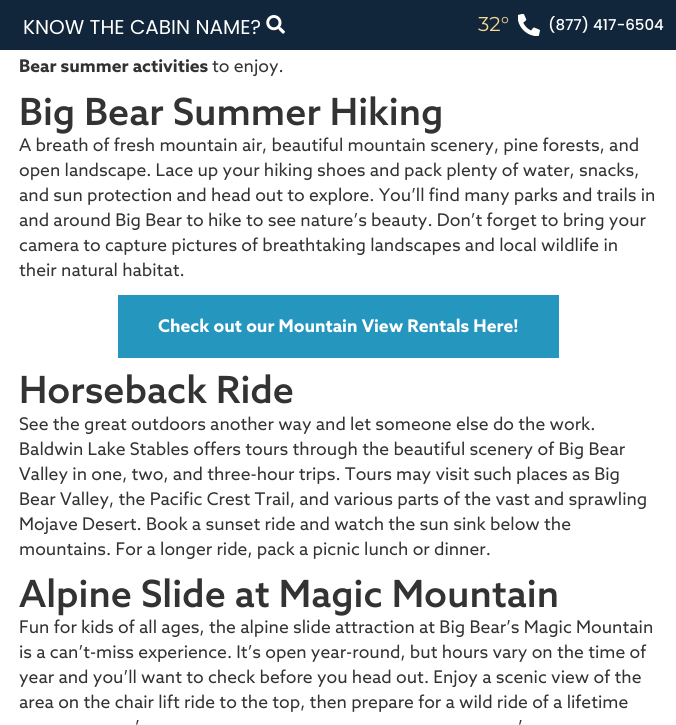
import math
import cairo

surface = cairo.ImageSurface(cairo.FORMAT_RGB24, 676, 725)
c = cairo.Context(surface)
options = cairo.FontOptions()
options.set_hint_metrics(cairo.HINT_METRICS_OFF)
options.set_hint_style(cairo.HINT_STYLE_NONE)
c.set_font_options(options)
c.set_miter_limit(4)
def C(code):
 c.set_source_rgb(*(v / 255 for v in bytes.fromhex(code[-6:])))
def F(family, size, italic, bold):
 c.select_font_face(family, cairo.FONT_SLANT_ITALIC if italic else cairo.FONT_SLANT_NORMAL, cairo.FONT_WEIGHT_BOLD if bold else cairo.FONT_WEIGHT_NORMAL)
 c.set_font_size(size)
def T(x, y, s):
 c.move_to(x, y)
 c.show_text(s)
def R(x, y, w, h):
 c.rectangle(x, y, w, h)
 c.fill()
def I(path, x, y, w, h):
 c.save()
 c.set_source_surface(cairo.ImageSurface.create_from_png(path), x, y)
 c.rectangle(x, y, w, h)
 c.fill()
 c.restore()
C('ffffff')
c.paint()
C('11263a')
R(0,0,676,50)
F('Poppins',20,0,0)
C('ffffff')
T(23,34,'KNOW THE CABIN NAME?')
I('1.png',266,15,19,19)
F('Montserrat',20,0,0)
C('f9d791')
T(478,31,'32°')
I('2.png',518,14,22,22)
F('Poppins Medium',15,0,0)
C('ffffff')
T(548,30,'(877) 417-6504')
F('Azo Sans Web',17.5,0,1)
C('333333')
T(19,72,'Bear summer activities')
F('Azo Sans Web',17.5,0,0)
T(212,72,'to enjoy.')
F('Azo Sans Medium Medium',37.5,0,0)
T(19,125,'Big Bear Summer Hiking')
F('Azo Sans Web',17.5,0,0)
T(19,151,'A breath of fresh mountain air, beautiful mountain scenery, pine forests, and')
T(19,176,'open landscape. Lace up your hiking shoes and pack plenty of water, snacks,')
T(19,201,'and sun protection and head out to explore. You’ll find many parks and trails in')
T(19,226,'and around Big Bear to hike to see nature’s beauty. Don’t forget to bring your')
T(19,251,'camera to capture pictures of breathtaking landscapes and local wildlife in')
T(19,276,'their natural habitat.')
C('2596be')
R(118,295,441,63)
F('Azo Sans Web',17.5,0,1)
C('ffffff')
T(158,332,'Check out our Mountain View Rentals Here!')
F('Azo Sans Medium Medium',37.5,0,0)
C('333333')
T(19,403,'Horseback Ride')
F('Azo Sans Web',17.5,0,0)
T(19,430,'See the great outdoors another way and let someone else do the work.')
T(19,455,'Baldwin Lake Stables offers tours through the beautiful scenery of Big Bear')
T(19,480,'Valley in one, two, and three-hour trips. Tours may visit such places as Big')
T(19,505,'Bear Valley, the Pacific Crest Trail, and various parts of the vast and sprawling')
T(19,530,'Mojave Desert. Book a sunset ride and watch the sun sink below the')
T(19,555,'mountains. For a longer ride, pack a picnic lunch or dinner.')
F('Azo Sans Medium Medium',37.5,0,0)
T(19,607,'Alpine Slide at Magic Mountain')
F('Azo Sans Web',17.5,0,0)
T(19,633,'Fun for kids of all ages, the alpine slide attraction at Big Bear’s Magic Mountain')
T(19,658,'is a can’t-miss experience. It’s open year-round, but hours vary on the time of')
T(19,683,'year and you’ll want to check before you head out. Enjoy a scenic view of the')
T(19,708,'area on the chair lift ride to the top, then prepare for a wild ride of a lifetime')
T(135,733,'’')
T(518,733,'’')
surface.write_to_png('o.png')
